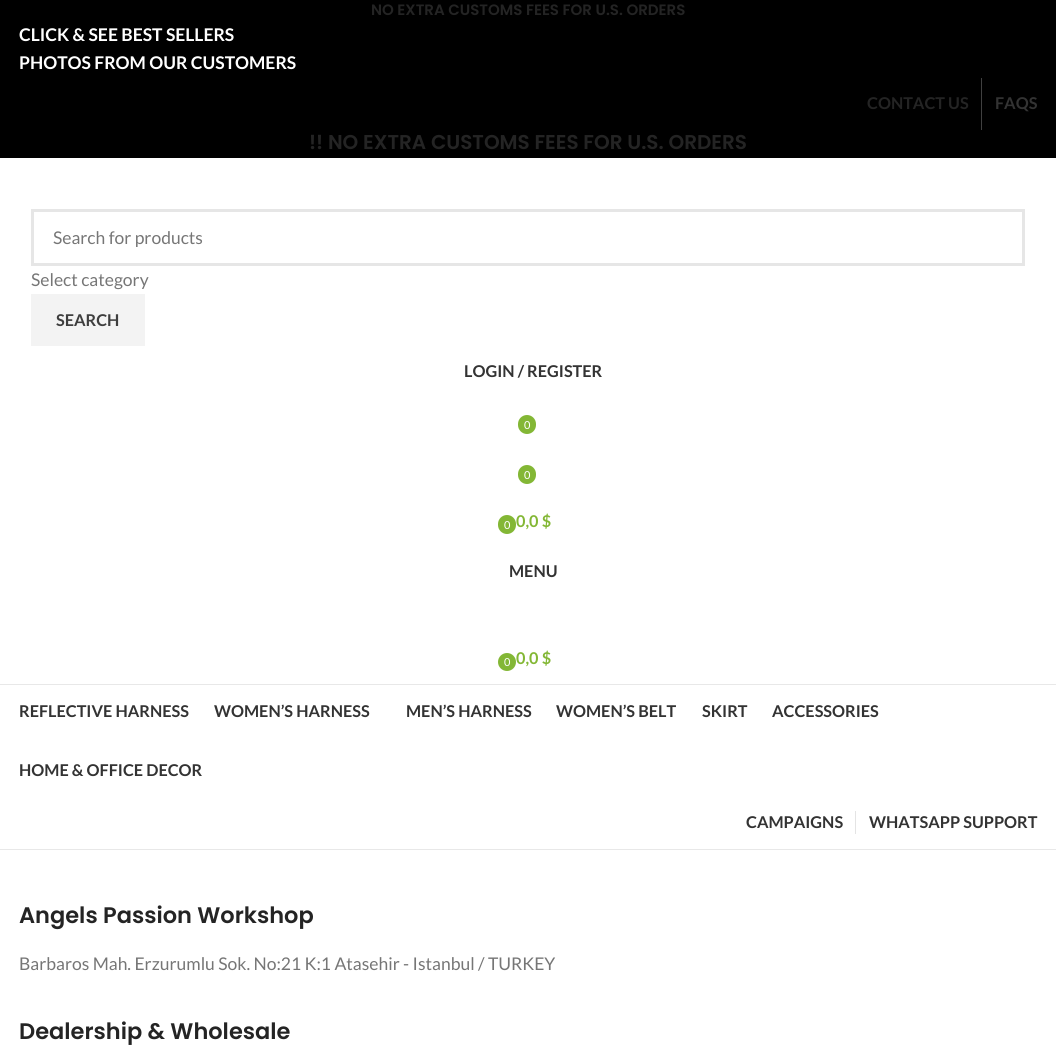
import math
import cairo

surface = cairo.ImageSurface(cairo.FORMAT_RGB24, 1056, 1060)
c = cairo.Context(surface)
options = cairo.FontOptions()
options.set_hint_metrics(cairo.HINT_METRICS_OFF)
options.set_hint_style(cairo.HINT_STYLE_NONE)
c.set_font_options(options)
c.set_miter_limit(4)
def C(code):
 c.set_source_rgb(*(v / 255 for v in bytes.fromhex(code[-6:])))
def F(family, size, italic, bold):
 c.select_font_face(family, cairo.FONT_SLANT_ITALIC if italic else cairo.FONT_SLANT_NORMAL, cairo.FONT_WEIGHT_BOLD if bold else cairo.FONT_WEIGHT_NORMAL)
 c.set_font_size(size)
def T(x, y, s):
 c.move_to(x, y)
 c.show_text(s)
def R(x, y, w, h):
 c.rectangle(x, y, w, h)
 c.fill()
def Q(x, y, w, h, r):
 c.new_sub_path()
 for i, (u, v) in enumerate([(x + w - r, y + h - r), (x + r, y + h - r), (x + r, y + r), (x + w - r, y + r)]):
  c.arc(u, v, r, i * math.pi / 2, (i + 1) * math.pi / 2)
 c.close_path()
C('ffffff')
c.paint()
C('000000')
R(0,0,1056,158)
F('Poppins SemiBold',15,0,0)
C('242424')
T(371,15,'NO EXTRA CUSTOMS FEES FOR U.S. ORDERS')
F('Lato',17.5,0,1)
C('ffffff')
T(19,41,'CLICK & SEE BEST SELLERS')
T(19,69,'PHOTOS FROM OUR CUSTOMERS')
F('Lato',16.25,0,1)
C('242424')
T(867,109,'CONTACT US')
C('404040')
R(981,78,1,52)
C('333333')
T(995,109,'FAQS')
F('Poppins SemiBold',20,0,0)
C('242424')
T(309,149,'!! NO EXTRA CUSTOMS FEES FOR U.S. ORDERS')
C('e8e8e8')
R(0,684,1056,1)
c.rectangle(32.5,210.5,991,54)
C('e6e6e6')
c.set_line_width(3)
c.stroke()
F('Lato',17.5,0,0)
C('767676')
T(53,244,'Search for products')
T(31,286,'Select category')
C('f3f3f3')
R(31,294,114,52)
F('Lato',16.25,0,1)
C('3e3e3e')
T(56,326,'SEARCH')
C('333333')
T(464,377,'LOGIN / REGISTER')
C('83b735')
Q(518,415,18,19,9)
c.fill()
F('Lato',11,0,0)
C('ffffff')
T(524,429,'0')
C('83b735')
Q(518,465,18,19,9)
c.fill()
C('ffffff')
T(524,479,'0')
C('83b735')
Q(498,515,18,19,9)
c.fill()
C('ffffff')
T(504,529,'0')
F('Lato',16.25,0,1)
C('83b735')
T(516,527,'0,0 $')
C('333333')
T(509,577,'MENU')
C('83b735')
c.new_path()
c.arc(507,662,9,0,2 * math.pi)
c.fill()
F('Lato',11,0,0)
C('ffffff')
T(504,666,'0')
F('Lato',16.25,0,1)
C('83b735')
T(516,664,'0,0 $')
C('e8e8e8')
R(0,849,1056,1)
C('333333')
T(19,717,'REFLECTIVE HARNESS')
T(214,717,'WOMEN’S HARNESS')
T(406,717,'MEN’S HARNESS')
T(556,717,'WOMEN’S BELT')
T(702,717,'SKIRT')
T(772,717,'ACCESSORIES')
T(19,776,'HOME & OFFICE DECOR')
T(746,828,'CAMPAIGNS')
C('e4e4e4')
R(855,811,1,23)
C('333333')
T(869,828,'WHATSAPP SUPPORT')
F('Poppins SemiBold',22.5,0,0)
C('242424')
T(19,923,'Angels Passion Workshop')
F('Lato',17.5,0,0)
C('767676')
T(19,970,'Barbaros Mah. Erzurumlu Sok. No:21 K:1 Atasehir - Istanbul / TURKEY')
F('Poppins SemiBold',22.5,0,0)
C('242424')
T(19,1039,'Dealership & Wholesale')
surface.write_to_png('o.png')
